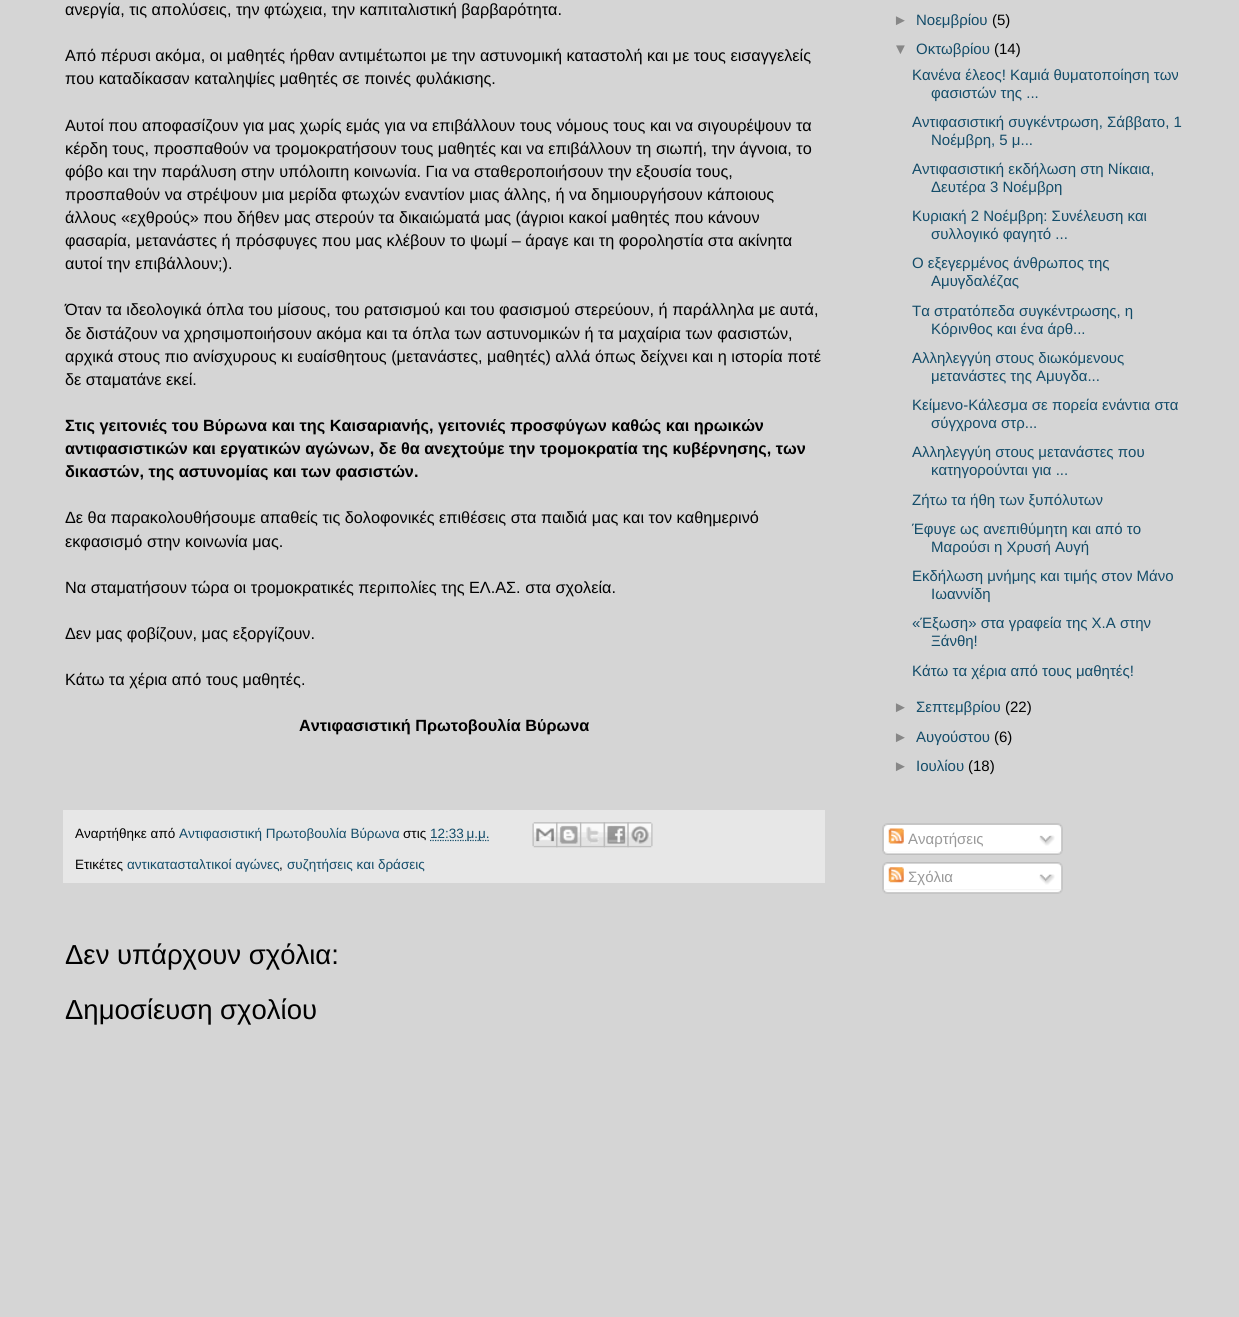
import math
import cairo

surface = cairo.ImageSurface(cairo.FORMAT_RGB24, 1239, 1317)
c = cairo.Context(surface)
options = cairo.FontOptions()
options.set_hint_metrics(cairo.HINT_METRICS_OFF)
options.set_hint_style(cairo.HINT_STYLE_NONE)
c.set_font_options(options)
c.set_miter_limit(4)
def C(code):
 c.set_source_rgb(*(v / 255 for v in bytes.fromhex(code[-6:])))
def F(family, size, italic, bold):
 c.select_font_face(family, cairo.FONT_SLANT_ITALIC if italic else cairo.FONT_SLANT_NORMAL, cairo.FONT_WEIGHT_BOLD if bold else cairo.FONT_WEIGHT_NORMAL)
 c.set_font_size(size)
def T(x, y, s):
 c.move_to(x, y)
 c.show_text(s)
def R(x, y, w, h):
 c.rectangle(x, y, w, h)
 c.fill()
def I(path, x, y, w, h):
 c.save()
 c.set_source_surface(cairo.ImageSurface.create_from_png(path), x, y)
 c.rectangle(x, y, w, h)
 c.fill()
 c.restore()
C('d5d5d5')
c.paint()
F('Liberation Sans',16.25,0,0)
C('000000')
T(65,15,'ανεργία, τις απολύσεις, την φτώχεια, την καπιταλιστική βαρβαρότητα.')
T(65,61,'Από πέρυσι ακόμα, οι μαθητές ήρθαν αντιμέτωποι με την αστυνομική καταστολή και με τους εισαγγελείς')
T(65,84,'που καταδίκασαν καταληψίες μαθητές σε ποινές φυλάκισης.')
T(65,131,'Αυτοί που αποφασίζουν για μας χωρίς εμάς για να επιβάλλουν τους νόμους τους και να σιγουρέψουν τα')
T(65,154,'κέρδη τους, προσπαθούν να τρομοκρατήσουν τους μαθητές και να επιβάλλουν τη σιωπή, την άγνοια, το')
T(65,177,'φόβο και την παράλυση στην υπόλοιπη κοινωνία. Για να σταθεροποιήσουν την εξουσία τους,')
T(65,200,'προσπαθούν να στρέψουν μια μερίδα φτωχών εναντίον μιας άλλης, ή να δημιουργήσουν κάποιους')
T(65,223,'άλλους «εχθρούς» που δήθεν μας στερούν τα δικαιώματά μας (άγριοι κακοί μαθητές που κάνουν')
T(65,246,'φασαρία, μετανάστες ή πρόσφυγες που μας κλέβουν το ψωμί – άραγε και τη φοροληστία στα ακίνητα')
T(65,269,'αυτοί την επιβάλλουν;).')
T(65,315,'Όταν τα ιδεολογικά όπλα του μίσους, του ρατσισμού και του φασισμού στερεύουν, ή παράλληλα με αυτά,')
T(65,339,'δε διστάζουν να χρησιμοποιήσουν ακόμα και τα όπλα των αστυνομικών ή τα μαχαίρια των φασιστών,')
T(65,362,'αρχικά στους πιο ανίσχυρους κι ευαίσθητους (μετανάστες, μαθητές) αλλά όπως δείχνει και η ιστορία ποτέ')
T(65,385,'δε σταματάνε εκεί.')
F('Liberation Sans',16.25,0,1)
T(65,431,'Στις γειτονιές του Βύρωνα και της Καισαριανής, γειτονιές προσφύγων καθώς και ηρωικών')
T(65,454,'αντιφασιστικών και εργατικών αγώνων, δε θα ανεχτούμε την τρομοκρατία της κυβέρνησης, των')
T(65,477,'δικαστών, της αστυνομίας και των φασιστών.')
F('Liberation Sans',16.25,0,0)
T(65,523,'Δε θα παρακολουθήσουμε απαθείς τις δολοφονικές επιθέσεις στα παιδιά μας και τον καθημερινό')
T(65,547,'εκφασισμό στην κοινωνία μας.')
T(65,593,'Να σταματήσουν τώρα οι τρομοκρατικές περιπολίες της ΕΛ.ΑΣ. στα σχολεία.')
T(65,639,'Δεν μας φοβίζουν, μας εξοργίζουν.')
T(65,685,'Κάτω τα χέρια από τους μαθητές.')
F('Liberation Sans',16.25,0,1)
T(299,731,'Αντιφασιστική Πρωτοβουλία Βύρωνα')
C('e7e7e7')
R(63,810,762,73)
F('Liberation Sans',13.5,0,0)
C('000000')
T(75,838,'Αναρτήθηκε από')
C('134c69')
T(179,838,'Αντιφασιστική Πρωτοβουλία Βύρωνα')
C('000000')
T(403,838,'στις')
c.new_path()
c.move_to(430,840.5)
c.line_to(489.5,840.5)
C('134c69')
c.set_line_width(1.2)
c.set_dash([1.25,1.25])
c.stroke()
T(430,838,'12:33 μ.μ.')
I('1.png',532,822,26,26)
I('2.png',556,822,26,26)
I('3.png',580,822,25,26)
I('4.png',603,822,26,26)
I('5.png',627,822,26,26)
C('000000')
T(75,869,'Ετικέτες')
C('134c69')
T(127,869,'αντικατασταλτικοί αγώνες')
C('000000')
T(279,869,',')
C('134c69')
T(287,869,'συζητήσεις και δράσεις')
F('Liberation Sans',27.5,0,0)
C('000000')
T(65,964,'Δεν υπάρχουν σχόλια:')
T(65,1019,'Δημοσίευση σχολίου')
F('Liberation Sans',15,0,0)
C('878787')
T(893,25,'►')
C('134c69')
T(916,25,'Νοεμβρίου')
C('000000')
T(992,25,'(5)')
C('878787')
T(893,54,'▼')
C('134c69')
T(916,54,'Οκτωβρίου')
C('000000')
T(994,54,'(14)')
C('134c69')
T(912,80,'Κανένα έλεος! Καμιά θυματοποίηση των')
T(931,98,'φασιστών της ...')
T(912,127,'Aντιφασιστική συγκέντρωση, Σάββατο, 1')
T(931,145,'Νοέμβρη, 5 μ...')
T(912,174,'Αντιφασιστική εκδήλωση στη Νίκαια,')
T(931,192,'Δευτέρα 3 Νοέμβρη')
T(912,221,'Κυριακή 2 Νοέμβρη: Συνέλευση και')
T(931,239,'συλλογικό φαγητό ...')
T(912,268,'Ο εξεγερμένος άνθρωπος της')
T(931,286,'Αμυγδαλέζας')
T(912,316,'Τα στρατόπεδα συγκέντρωσης, η')
T(931,334,'Κόρινθος και ένα άρθ...')
T(912,363,'Aλληλεγγύη στους διωκόμενους')
T(931,381,'μετανάστες της Αμυγδα...')
T(912,410,'Κείμενο-Κάλεσμα σε πορεία ενάντια στα')
T(931,428,'σύγχρονα στρ...')
T(912,457,'Αλληλεγγύη στους μετανάστες που')
T(931,475,'κατηγορούνται για ...')
T(912,505,'Ζήτω τα ήθη των ξυπόλυτων')
T(912,534,'Έφυγε ως ανεπιθύμητη και από το')
T(931,552,'Μαρούσι η Χρυσή Αυγή')
T(912,581,'Εκδήλωση μνήμης και τιμής στον Μάνο')
T(931,599,'Ιωαννίδη')
T(912,628,'«Έξωση» στα γραφεία της Χ.Α στην')
T(931,646,'Ξάνθη!')
T(912,676,'Κάτω τα χέρια από τους μαθητές!')
C('878787')
T(893,712,'►')
C('134c69')
T(916,712,'Σεπτεμβρίου')
C('000000')
T(1005,712,'(22)')
C('878787')
T(893,742,'►')
C('134c69')
T(916,742,'Αυγούστου')
C('000000')
T(994,742,'(6)')
C('878787')
T(893,771,'►')
C('134c69')
T(916,771,'Ιουλίου')
C('000000')
T(968,771,'(18)')
I('6.png',882,823,181,28)
I('7.png',888,828,16,16)
C('999999')
T(908,844,'Αναρτήσεις')
I('8.png',1039,835,16,11)
I('9.png',882,851,181,4)
I('10.png',882,862,181,28)
I('11.png',888,867,16,16)
T(908,882,'Σχόλια')
I('12.png',1039,874,16,11)
I('13.png',882,890,181,4)
surface.write_to_png('o.png')
